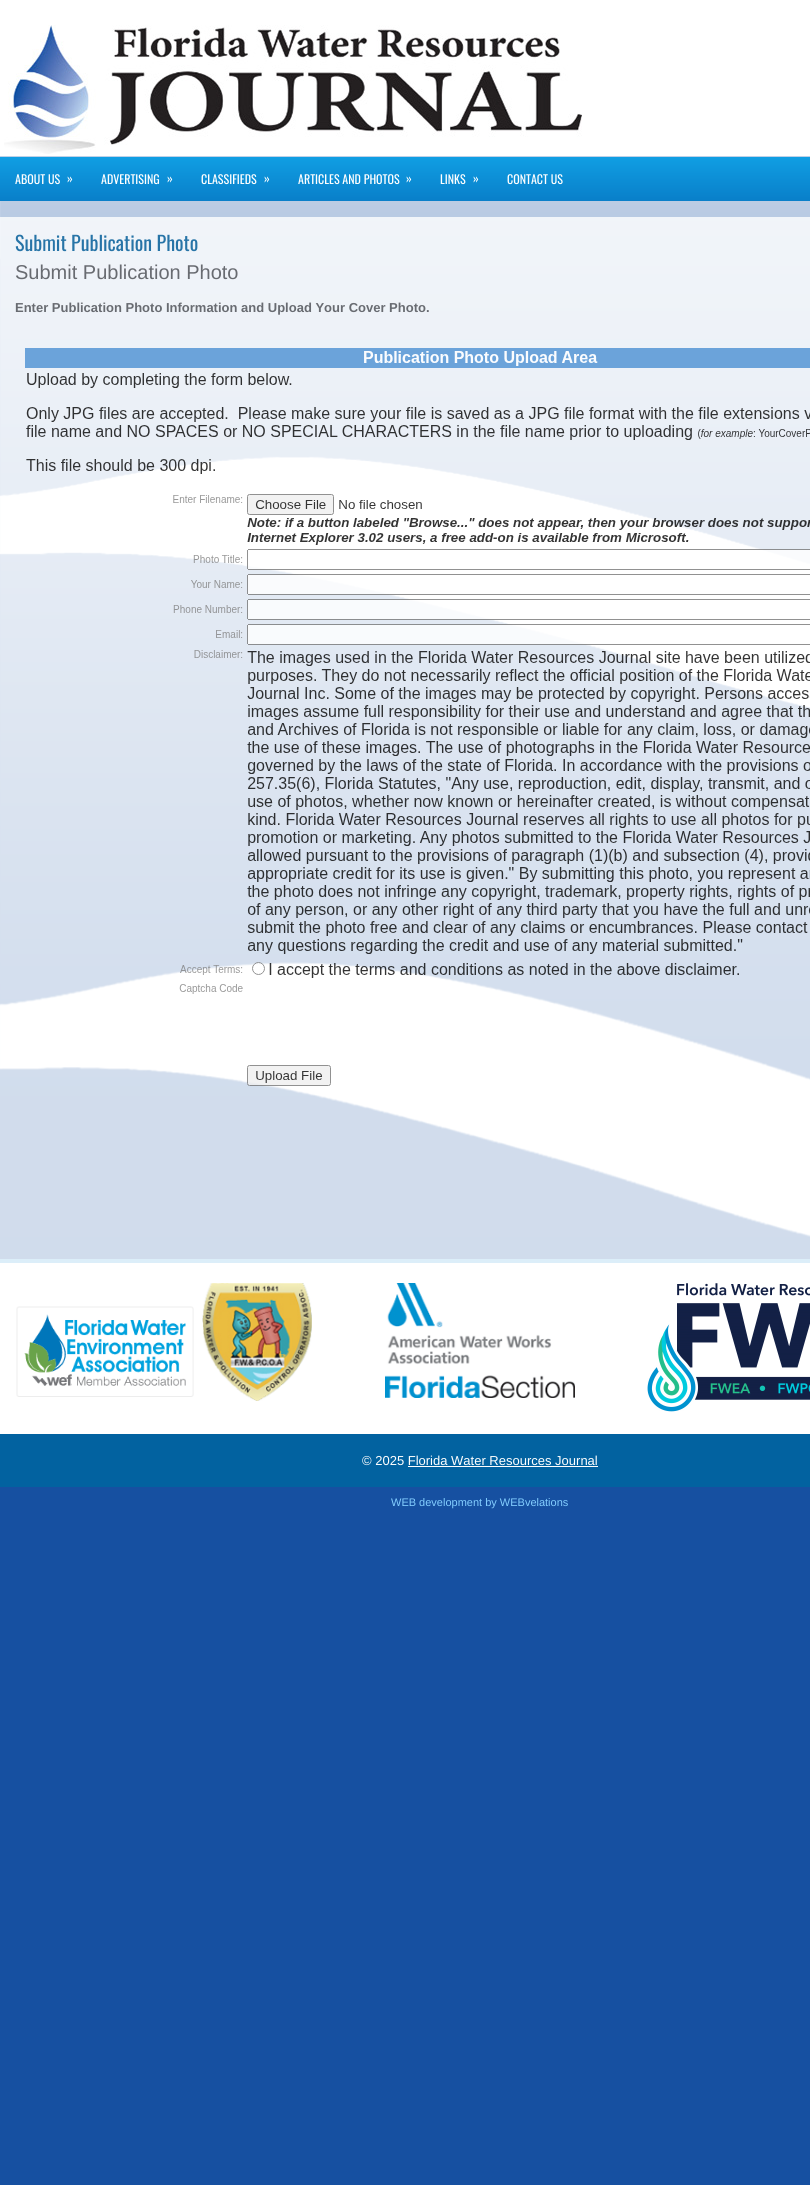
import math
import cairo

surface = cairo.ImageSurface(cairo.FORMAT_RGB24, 810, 2185)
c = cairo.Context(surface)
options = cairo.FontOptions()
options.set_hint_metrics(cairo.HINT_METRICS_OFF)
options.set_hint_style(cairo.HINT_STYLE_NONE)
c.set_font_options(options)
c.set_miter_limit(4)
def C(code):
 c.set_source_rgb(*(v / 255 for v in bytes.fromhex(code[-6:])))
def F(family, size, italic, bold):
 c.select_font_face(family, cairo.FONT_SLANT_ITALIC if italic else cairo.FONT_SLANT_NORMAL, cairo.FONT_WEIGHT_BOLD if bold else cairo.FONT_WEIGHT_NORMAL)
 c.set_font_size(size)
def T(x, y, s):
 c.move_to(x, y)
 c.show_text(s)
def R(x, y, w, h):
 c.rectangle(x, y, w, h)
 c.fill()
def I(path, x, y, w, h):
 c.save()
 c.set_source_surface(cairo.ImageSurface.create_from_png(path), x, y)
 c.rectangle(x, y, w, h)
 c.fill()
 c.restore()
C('1650a1')
c.paint()
I('1.png',0,0,810,1237)
I('2.png',4,25,578,129)
gradient = cairo.LinearGradient(480,157,480,201)
gradient.add_color_stop_rgba(0,0.063,0.62,0.89,1)
gradient.add_color_stop_rgba(1,0.035,0.498,0.788,1)
c.set_source(gradient)
R(0,157,810,44)
F('Oswald',12,0,0)
C('ffffff')
T(15,184,'ABOUT US')
T(67,183,'»')
T(101,184,'ADVERTISING')
T(167,183,'»')
T(201,184,'CLASSIFIEDS')
T(264,183,'»')
T(298,184,'ARTICLES AND PHOTOS')
T(406,183,'»')
T(440,184,'LINKS')
T(473,183,'»')
T(507,184,'CONTACT US')
c.set_source_rgba(1,1,1,0.8)
R(0,217,810,1042)
F('Oswald',20,0,0)
C('2774a7')
T(15,251,'Submit Publication Photo')
F('Liberation Sans',20,0,0)
C('686b71')
T(15,279,'Submit Publication Photo')
F('Liberation Sans',13,0,1)
T(15,312,'Enter Publication Photo Information and Upload Your Cover Photo.')
I('3.png',25,348,785,738)
C('ffffff')
R(0,1263,810,171)
C('dceef9')
R(0,1259,810,4)
I('4.png',16,1306,178,91)
I('5.png',202,1283,110,118)
I('6.png',385,1283,190,115)
I('7.png',647,1283,163,129)
C('0262a0')
R(0,1434,810,53)
F('Liberation Sans',13,0,0)
C('ffffff')
T(362,1465,'© 2025 Florida Water Resources Journal')
R(408,1466,190,1)
F('Liberation Sans',11,0,0)
C('83ceff')
T(391,1506,'WEB development by WEBvelations')
surface.write_to_png('o.png')
